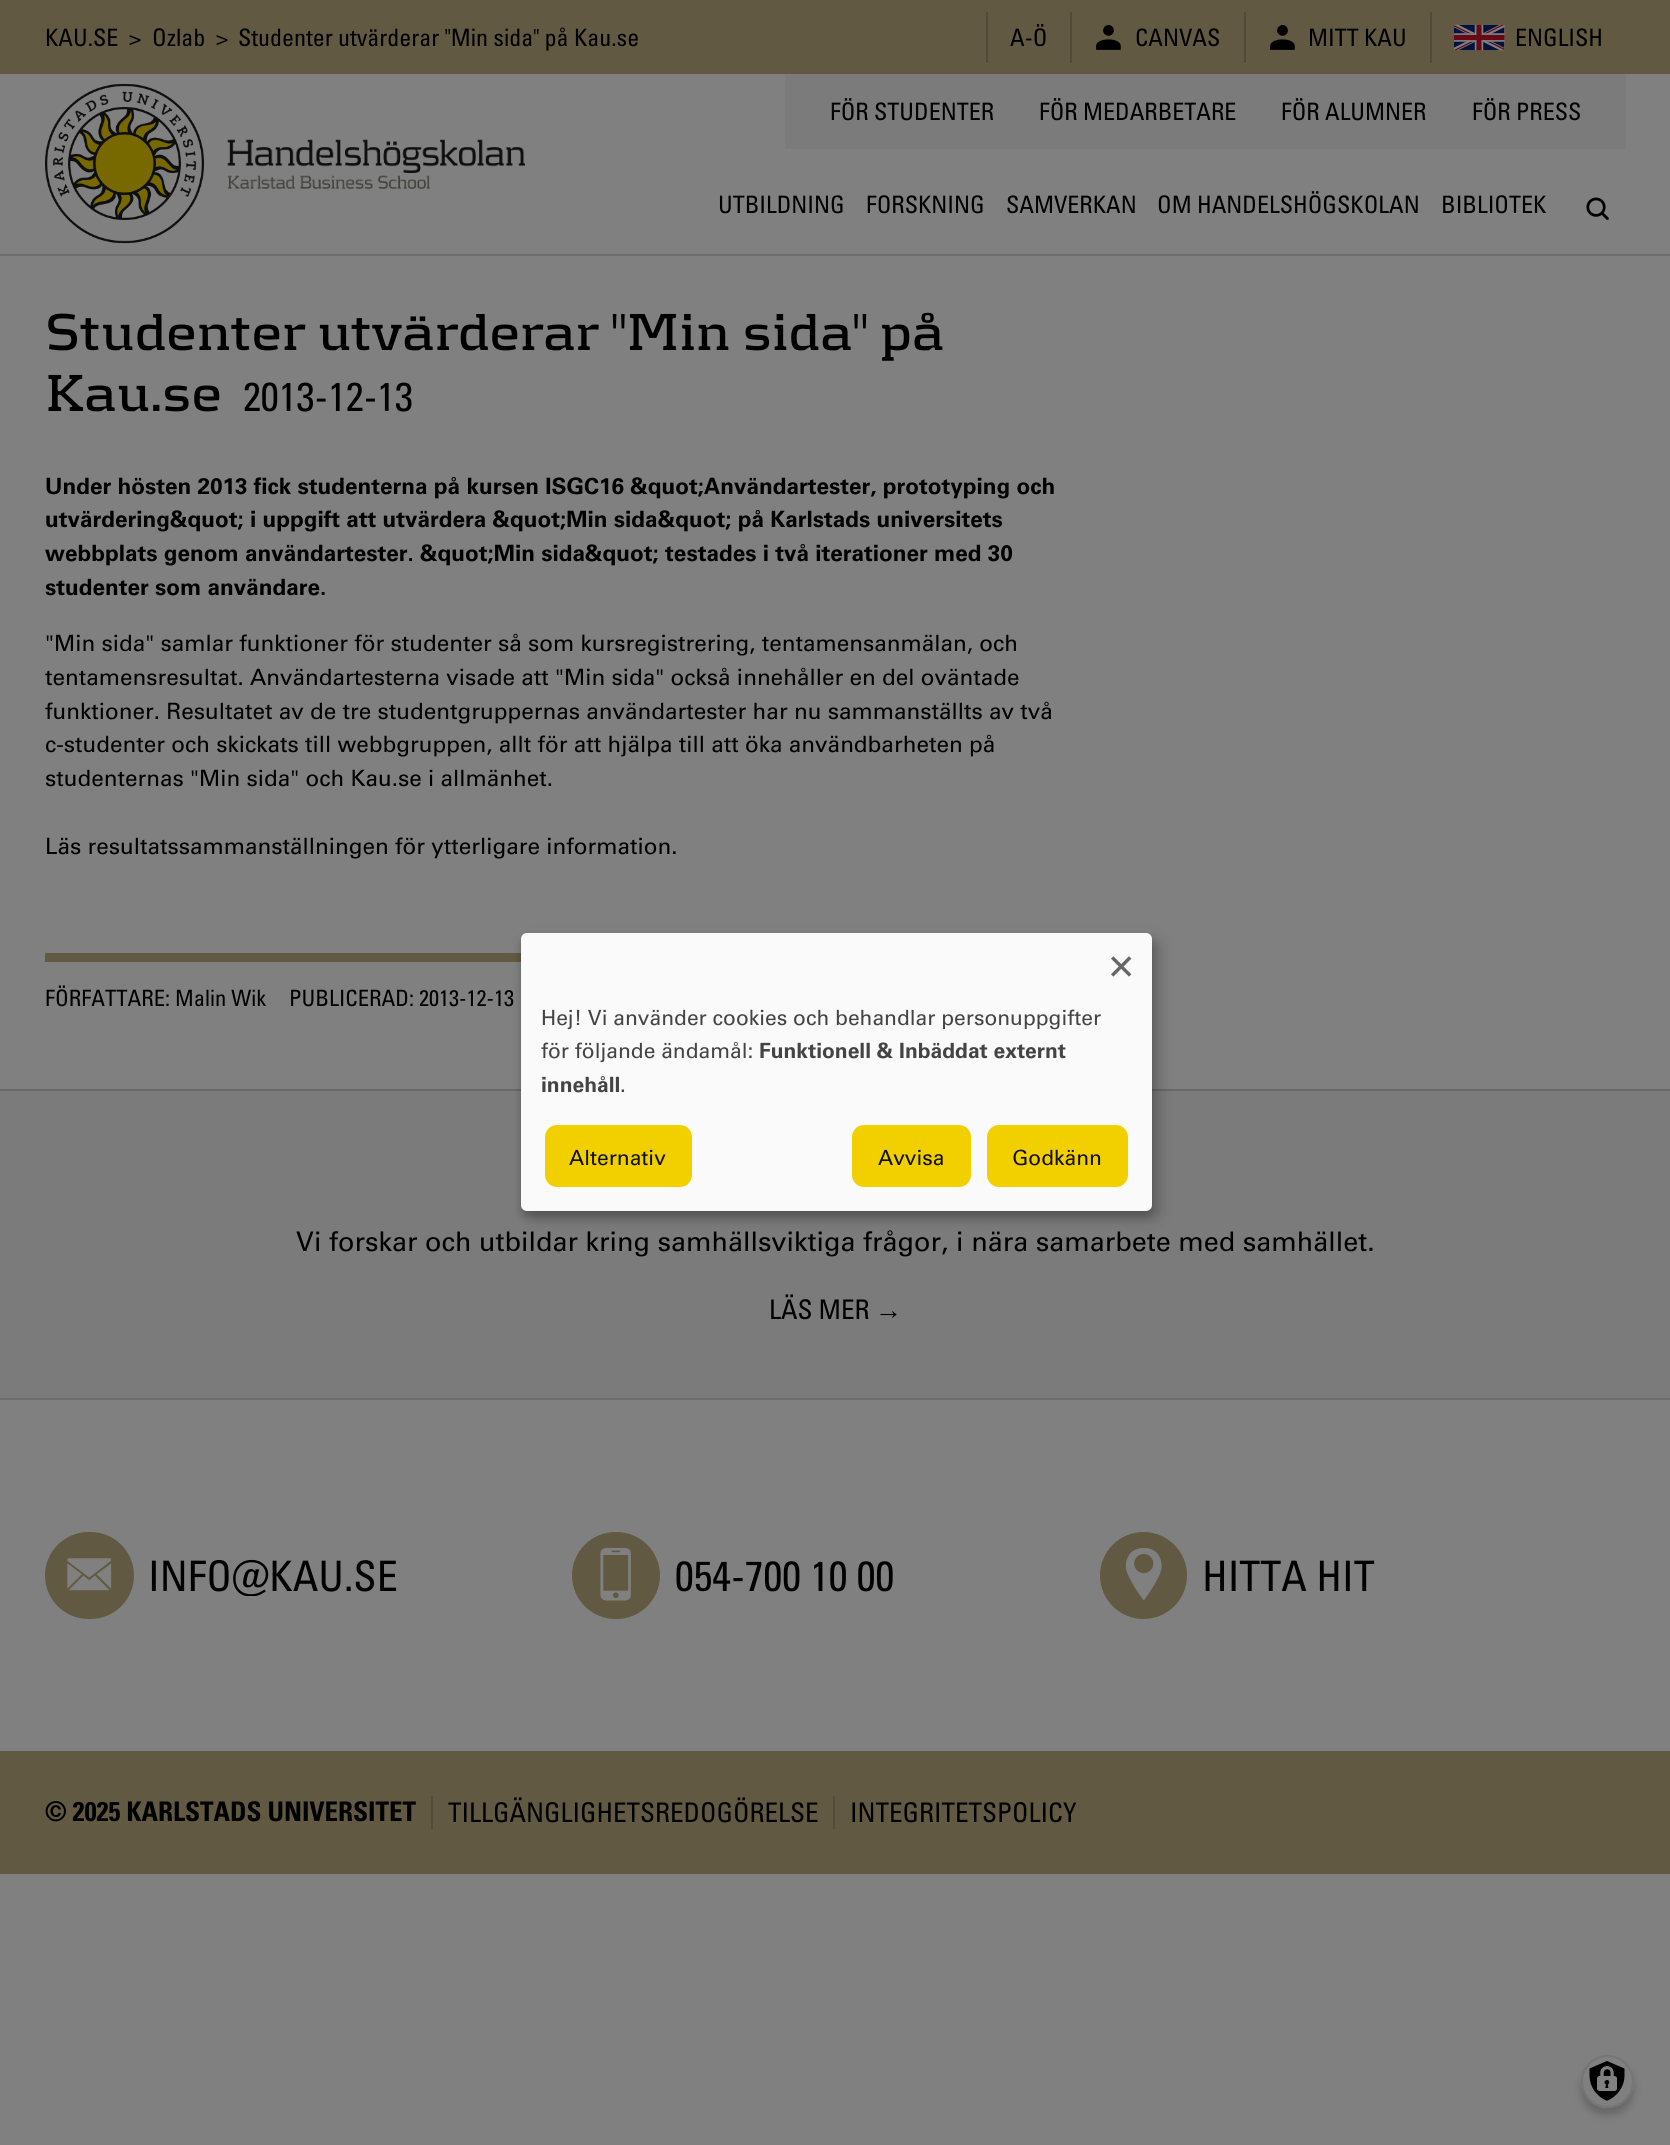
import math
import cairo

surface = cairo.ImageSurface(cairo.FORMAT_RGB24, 1670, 2145)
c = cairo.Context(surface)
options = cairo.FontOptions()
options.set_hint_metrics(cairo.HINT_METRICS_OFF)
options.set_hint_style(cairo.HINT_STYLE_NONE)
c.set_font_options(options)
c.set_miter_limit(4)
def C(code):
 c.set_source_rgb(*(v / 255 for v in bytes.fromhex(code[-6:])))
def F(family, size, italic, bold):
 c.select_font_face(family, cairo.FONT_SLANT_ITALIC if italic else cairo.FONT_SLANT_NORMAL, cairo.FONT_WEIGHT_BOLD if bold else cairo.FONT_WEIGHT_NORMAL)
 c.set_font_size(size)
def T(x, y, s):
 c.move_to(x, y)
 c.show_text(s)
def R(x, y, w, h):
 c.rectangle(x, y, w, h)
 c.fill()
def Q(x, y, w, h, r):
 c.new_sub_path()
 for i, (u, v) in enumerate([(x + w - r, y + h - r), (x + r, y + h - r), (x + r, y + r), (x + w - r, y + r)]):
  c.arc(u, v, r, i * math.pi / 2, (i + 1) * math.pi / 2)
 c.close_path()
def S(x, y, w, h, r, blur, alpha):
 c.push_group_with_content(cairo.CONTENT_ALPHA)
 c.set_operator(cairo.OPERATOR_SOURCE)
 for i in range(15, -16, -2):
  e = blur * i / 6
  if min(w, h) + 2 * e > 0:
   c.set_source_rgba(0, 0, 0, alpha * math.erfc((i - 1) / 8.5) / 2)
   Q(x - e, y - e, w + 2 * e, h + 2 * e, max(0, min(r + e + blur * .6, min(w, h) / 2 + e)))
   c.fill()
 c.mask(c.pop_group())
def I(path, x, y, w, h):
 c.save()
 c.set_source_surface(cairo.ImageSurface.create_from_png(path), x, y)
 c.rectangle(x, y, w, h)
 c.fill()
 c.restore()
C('808080')
c.paint()
C('615941')
R(0,0,1670,74)
F('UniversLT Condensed',24,0,0)
C('000000')
T(45,46,'KAU.SE')
T(129,46,'>')
T(152,46,'Ozlab')
T(216,46,'>')
T(238,46,'Studenter utvärderar "Min sida" på Kau.se')
C('524b37')
R(986,12,2,51)
C('000000')
T(1010,46,'A-Ö')
C('524b37')
R(1070,12,2,51)
I('1.png',1096,25,25,25)
C('000000')
T(1135,46,'CANVAS')
C('524b37')
R(1244,12,2,51)
I('1.png',1270,25,25,25)
C('000000')
T(1308,46,'MITT KAU')
C('524b37')
R(1430,12,2,51)
I('2.png',1454,24,51,27)
C('000000')
T(1515,46,'ENGLISH')
I('3.png',45,84,159,160)
I('4.png',227,139,298,50)
C('7b7b7b')
R(785,74,841,75)
C('000000')
T(830,120,'FÖR STUDENTER')
T(1039,120,'FÖR MEDARBETARE')
T(1281,120,'FÖR ALUMNER')
T(1472,120,'FÖR PRESS')
T(718,213,'UTBILDNING')
T(866,213,'FORSKNING')
T(1006,213,'SAMVERKAN')
T(1157,213,'OM HANDELSHÖGSKOLAN')
T(1441,213,'BIBLIOTEK')
I('5.png',1586,197,23,23)
C('6d6d6d')
R(0,254,1670,2)
F('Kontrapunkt',54.1,0,1)
C('000000')
T(45,350,'Studenter utvärderar "Min sida" på')
T(45,411,'Kau.se')
F('UniversLT Condensed',40.25,0,0)
T(243,411,'2013-12-13')
F('Univers',22.5,0,1)
T(45,494,'Under hösten 2013 fick studenterna på kursen ISGC16 &quot;Användartester, prototyping och')
T(45,527,'utvärdering&quot; i uppgift att utvärdera &quot;Min sida&quot; på Karlstads universitets')
T(45,561,'webbplats genom användartester. &quot;Min sida&quot; testades i två iterationer med 30')
T(45,595,'studenter som användare.')
F('Univers',22.5,0,0)
T(45,651,'"Min sida" samlar funktioner för studenter så som kursregistrering, tentamensanmälan, och')
T(45,685,'tentamensresultat. Användartesterna visade att "Min sida" också innehåller en del oväntade')
T(45,719,'funktioner. Resultatet av de tre studentgruppernas användartester har nu sammanställts av två')
T(45,752,'c-studenter och skickats till webbgruppen, allt för att hjälpa till att öka användbarheten på')
T(45,786,'studenternas "Min sida" och Kau.se i allmänhet.')
T(45,854,'Läs resultatssammanställningen för ytterligare information.')
C('615941')
R(45,953,476,9)
F('UniversLT Condensed',22.5,0,0)
C('000000')
T(45,1006,'FÖRFATTARE: Malin Wik')
T(289,1006,'PUBLICERAD: 2013-12-13')
C('7b7b7b')
R(0,1091,1670,307)
C('696969')
R(0,1089,1670,2)
F('Univers',27,0,0)
C('000000')
T(296,1251,'Vi forskar och utbildar kring samhällsviktiga frågor, i nära samarbete med samhället.')
F('UniversLT Condensed',27,0,0)
T(769,1319,'LÄS MER')
F('Liberation Sans',27,0,0)
T(875,1319,'→')
C('6d6d6d')
R(0,1398,1670,2)
C('615941')
Q(45,1532,89,87,43.5)
c.fill()
I('6.png',67,1558,45,33)
c.save()
c.rectangle(149,1554,412,42)
c.clip()
F('UniversLT Condensed',42,0,0)
C('000000')
T(148,1591,'INFO@KAU.SE')
c.restore()
Q(572,1532,88,87,43.5)
c.fill()
I('7.png',600,1548,31,53)
F('UniversLT Condensed',42,0,0)
C('000000')
T(675,1591,'054-700 10 00')
C('615941')
c.new_path()
c.arc(1143.5,1575.5,43.5,0,2 * math.pi)
c.fill()
I('8.png',1125,1548,37,53)
C('000000')
T(1202,1591,'HITTA HIT')
C('615941')
R(0,1751,1670,123)
F('UniversLT Condensed',27,0,1)
C('000000')
T(45,1821,'© 2025 KARLSTADS UNIVERSITET')
C('524b37')
R(431,1796,2,33)
F('UniversLT Condensed',27,0,0)
C('000000')
T(448,1822,'TILLGÄNGLIGHETSREDOGÖRELSE')
C('524b37')
R(833,1796,2,33)
C('000000')
T(850,1822,'INTEGRITETSPOLICY')
C('000000')
S(528,941,632,277,6,7.5,.19)
S(521,939,631,278,6,4.5,.2)
C('fafafa')
Q(521,933,631,278,6)
c.fill()
F('Univers',42,0,0)
C('666666')
T(1109,977,'×')
F('Univers',21,0,0)
C('444444')
T(541,1025,'Hej! Vi använder cookies och behandlar personuppgifter')
T(541,1058,'för följande ändamål:')
F('Univers',21,0,1)
T(759,1058,'Funktionell & Inbäddat externt')
T(541,1092,'innehåll')
F('Univers',21,0,0)
T(620,1092,'.')
C('f2d000')
Q(543.5,1123.5,150,65,13.5)
c.fill_preserve()
C('fafafa')
c.set_line_width(3)
c.stroke()
C('111111')
T(569,1165,'Alternativ')
C('f2d000')
Q(850.5,1123.5,122,65,13.5)
c.fill_preserve()
C('fafafa')
c.stroke()
C('111111')
T(878,1165,'Avvisa')
C('f2d000')
Q(985.5,1123.5,144,65,13.5)
c.fill_preserve()
C('fafafa')
c.stroke()
C('111111')
T(1012,1165,'Godkänn')
C('000000')
S(1581,2063,53,52,26,4,.2)
C('808080')
c.arc(1607.5,2081.5,26.5,0,2 * math.pi)
c.fill()
I('9.png',1589,2061,36,40)
c.arc(1607.5,2081.5,25.5,0,2 * math.pi)
C('757575')
c.set_line_width(2)
c.stroke()
surface.write_to_png('o.png')
